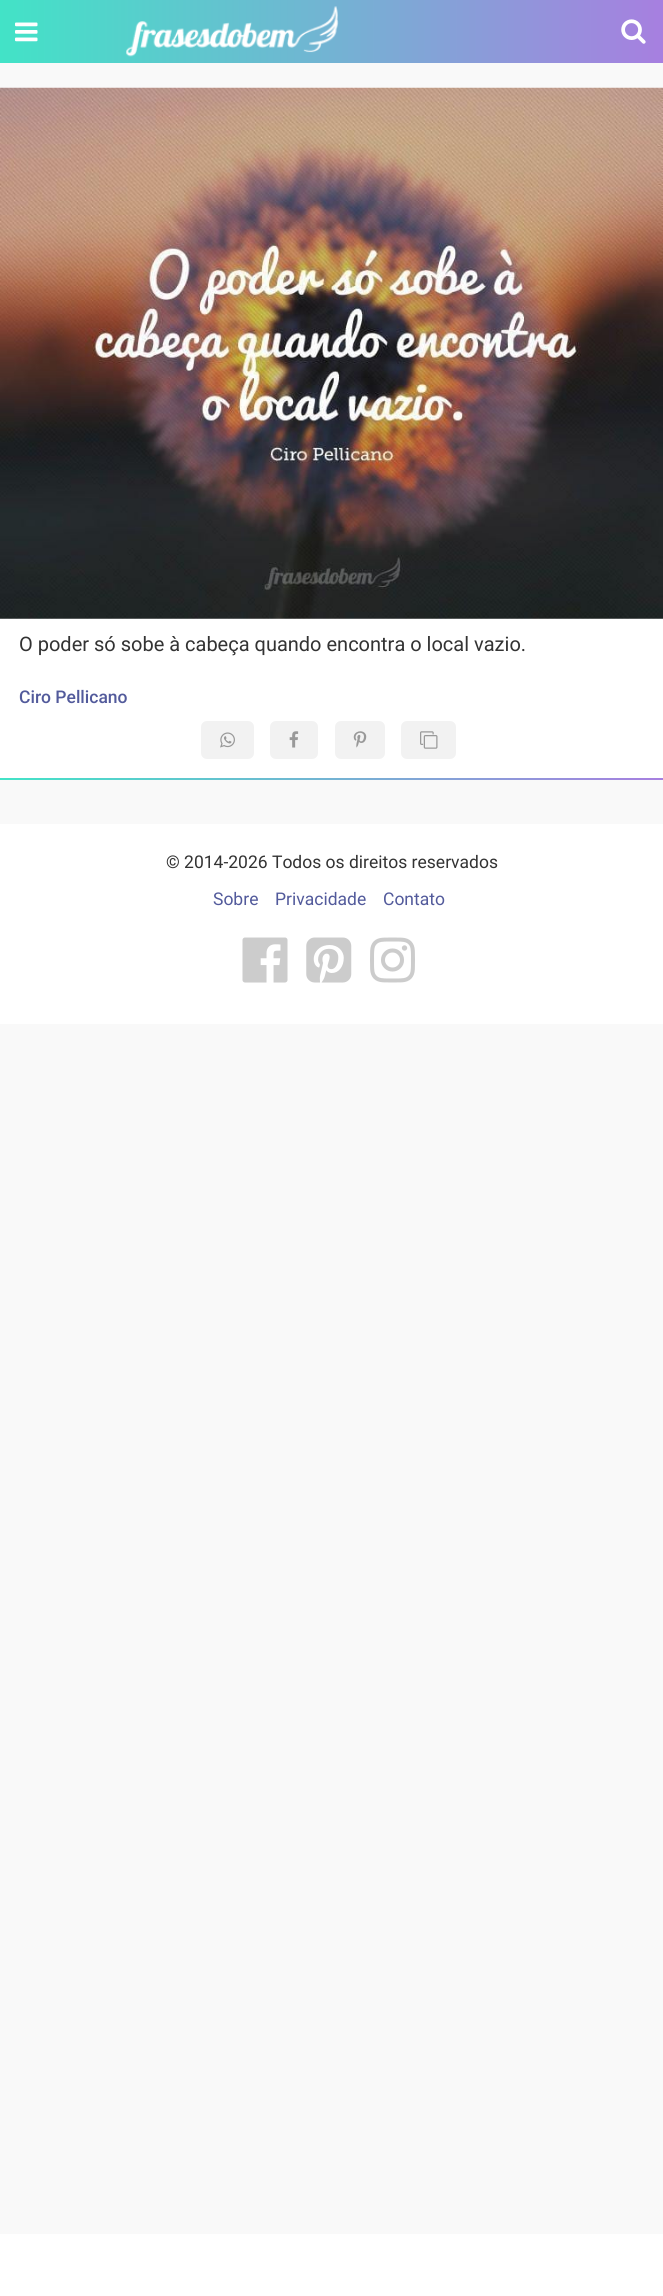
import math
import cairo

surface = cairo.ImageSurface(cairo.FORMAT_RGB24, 663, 2296)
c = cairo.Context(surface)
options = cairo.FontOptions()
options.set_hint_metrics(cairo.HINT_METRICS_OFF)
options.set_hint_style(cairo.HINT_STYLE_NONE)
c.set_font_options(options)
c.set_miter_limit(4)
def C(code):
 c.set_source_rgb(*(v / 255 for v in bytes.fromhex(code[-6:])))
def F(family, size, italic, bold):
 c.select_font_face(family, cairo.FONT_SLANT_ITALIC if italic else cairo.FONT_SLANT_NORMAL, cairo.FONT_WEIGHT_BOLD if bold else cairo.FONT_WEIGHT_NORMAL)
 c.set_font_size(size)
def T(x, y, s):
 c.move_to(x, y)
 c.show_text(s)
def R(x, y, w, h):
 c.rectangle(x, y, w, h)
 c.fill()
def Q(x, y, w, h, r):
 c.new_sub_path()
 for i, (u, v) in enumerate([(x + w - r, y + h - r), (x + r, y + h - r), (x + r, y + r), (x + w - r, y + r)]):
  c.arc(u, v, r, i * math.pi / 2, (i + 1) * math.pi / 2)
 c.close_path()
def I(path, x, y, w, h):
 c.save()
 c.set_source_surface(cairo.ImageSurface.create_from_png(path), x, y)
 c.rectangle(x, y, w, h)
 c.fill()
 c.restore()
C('f9f9f9')
c.paint()
gradient = cairo.LinearGradient(0,31,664,31)
gradient.add_color_stop_rgba(0,0.259,0.89,0.78,1)
gradient.add_color_stop_rgba(.5,0.451,0.702,0.827,1)
gradient.add_color_stop_rgba(1,0.655,0.498,0.878,1)
c.set_source(gradient)
R(0,0,663,63)
I('1.png',15,22,23,20)
I('2.png',126,6,213,51)
I('3.png',621,19,25,25)
C('ffffff')
R(0,618,663,160)
I('4.png',0,87,663,532)
F('Roboto',20,0,0)
C('333333')
T(19,651,'O poder só sobe à cabeça quando encontra o local vazio.')
F('Roboto Medium',17.5,0,0)
C('525a9b')
T(19,703,'Ciro Pellicano')
C('f2f2f2')
Q(201,721,53,38,6)
c.fill()
I('5.png',220,732,15,16)
Q(270,721,48,38,6)
c.fill()
I('6.png',289,731,10,17)
Q(335,721,50,38,6)
c.fill()
I('7.png',353,731,14,17)
Q(401,721,55,38,6)
c.fill()
I('8.png',420,731,18,18)
gradient = cairo.LinearGradient(0,779,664,779)
gradient.add_color_stop_rgba(0,0.259,0.89,0.78,1)
gradient.add_color_stop_rgba(.5,0.451,0.702,0.827,1)
gradient.add_color_stop_rgba(1,0.655,0.498,0.878,1)
c.set_source(gradient)
R(0,778,663,2)
C('ffffff')
R(0,824,663,200)
F('Roboto',17.5,0,0)
C('333333')
T(166,868,'© 2014-2026 Todos os direitos reservados')
C('525a9b')
T(213,905,'Sobre')
T(275,905,'Privacidade')
T(383,905,'Contato')
I('9.png',242,937,46,46)
I('10.png',306,937,46,46)
I('11.png',370,937,45,46)
C('ffffff')
R(0,2234,663,62)
surface.write_to_png('o.png')
